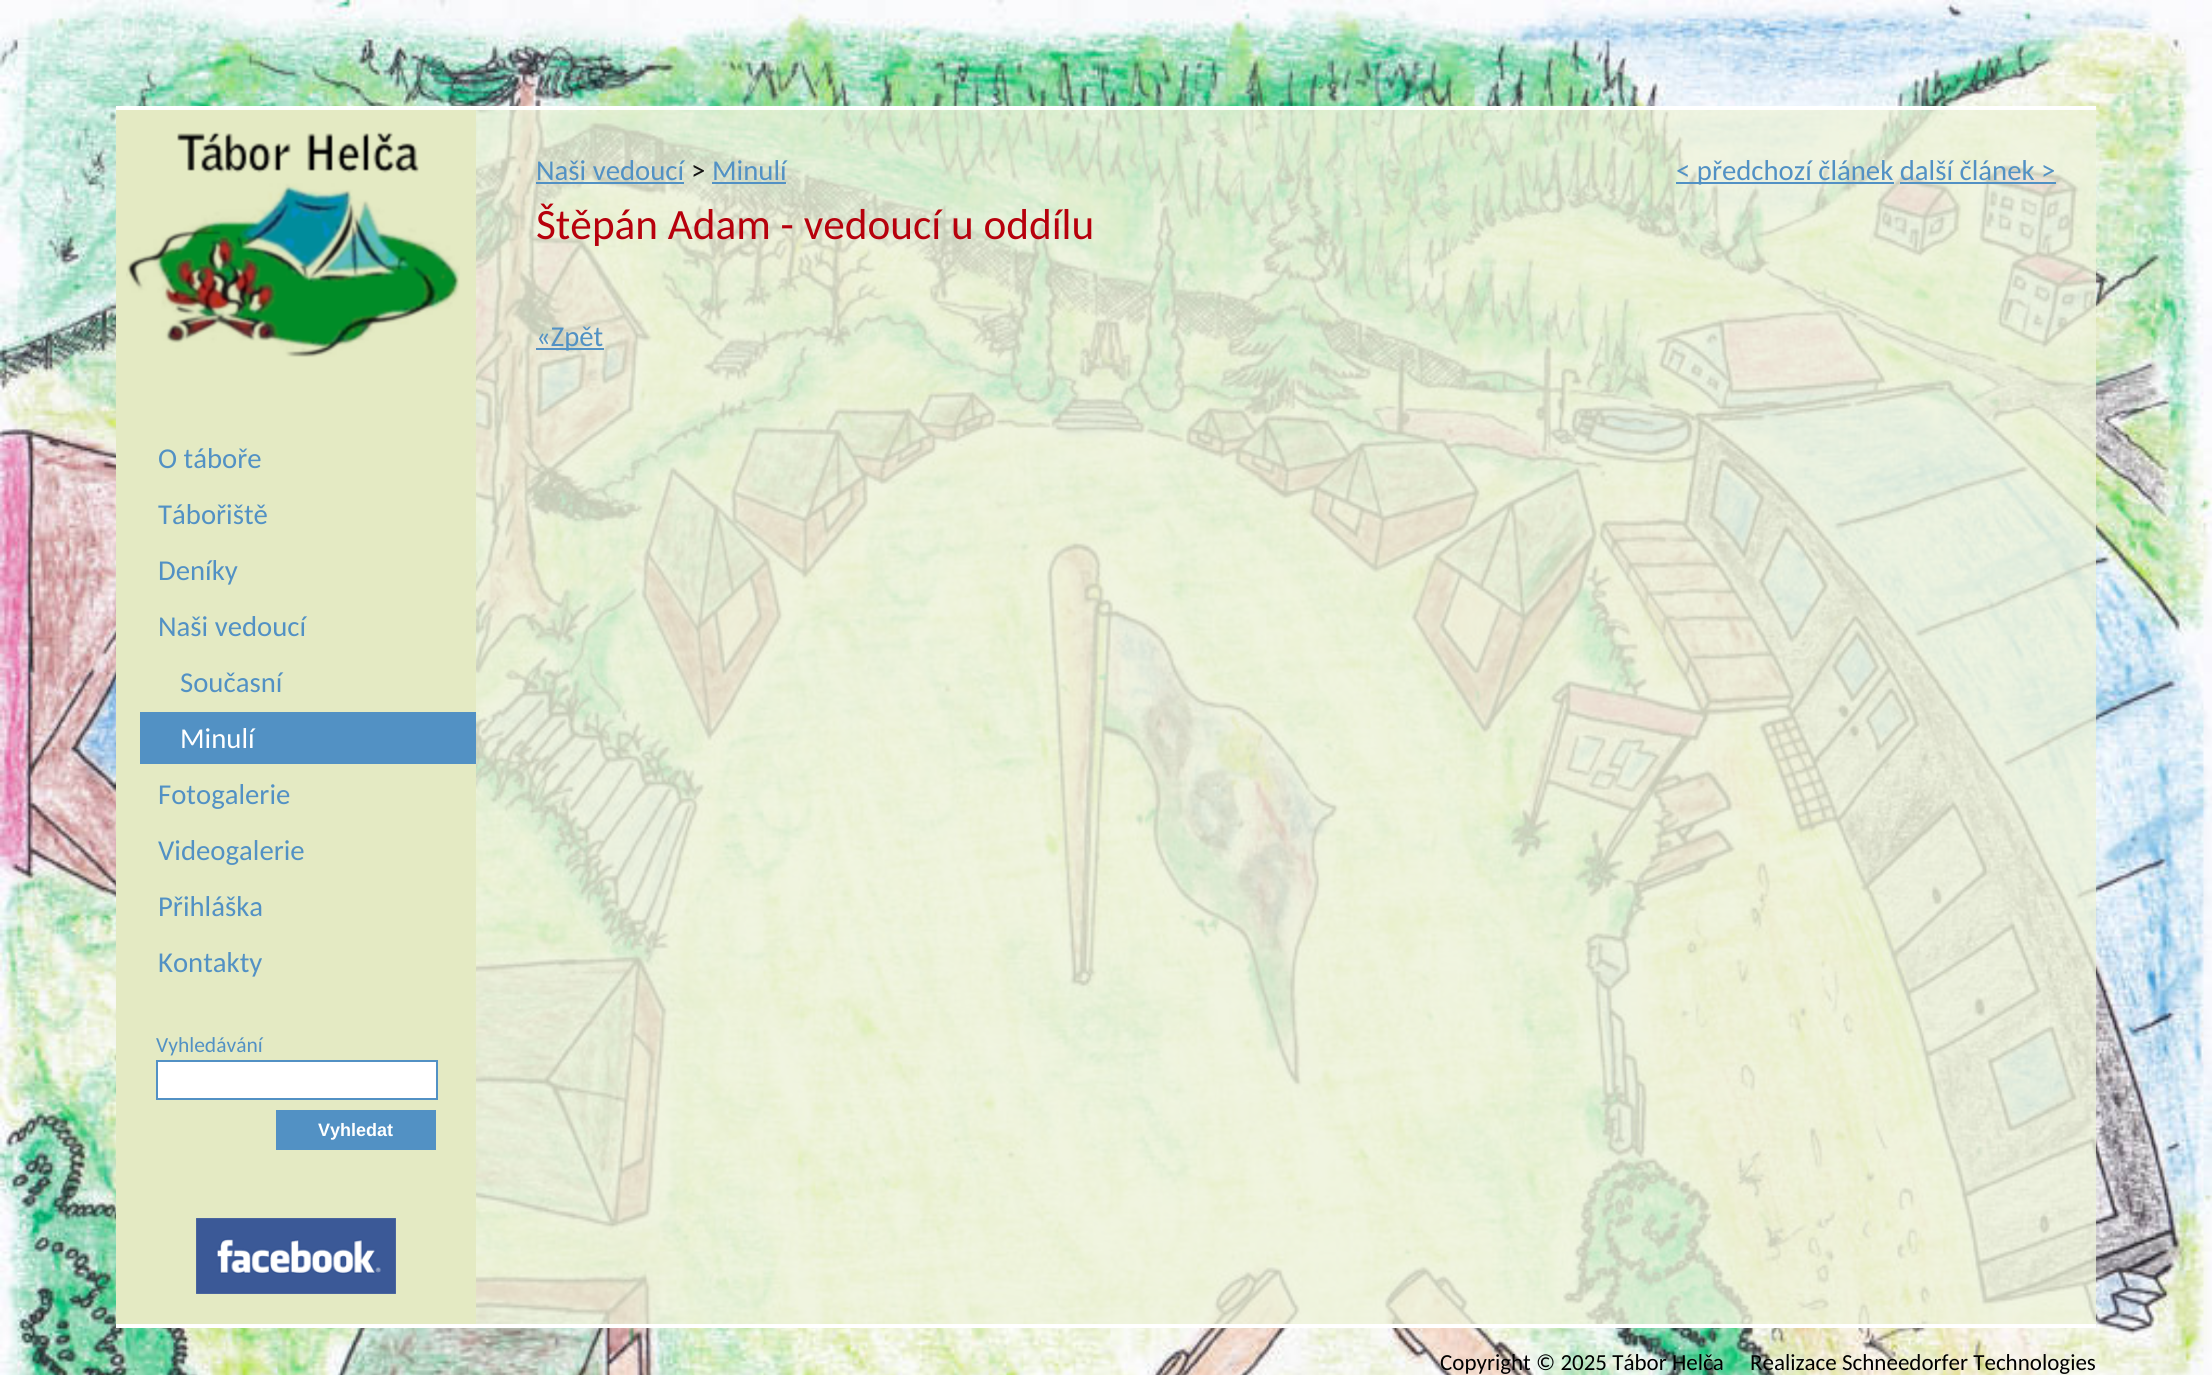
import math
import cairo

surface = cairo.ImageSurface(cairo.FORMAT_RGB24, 2212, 1375)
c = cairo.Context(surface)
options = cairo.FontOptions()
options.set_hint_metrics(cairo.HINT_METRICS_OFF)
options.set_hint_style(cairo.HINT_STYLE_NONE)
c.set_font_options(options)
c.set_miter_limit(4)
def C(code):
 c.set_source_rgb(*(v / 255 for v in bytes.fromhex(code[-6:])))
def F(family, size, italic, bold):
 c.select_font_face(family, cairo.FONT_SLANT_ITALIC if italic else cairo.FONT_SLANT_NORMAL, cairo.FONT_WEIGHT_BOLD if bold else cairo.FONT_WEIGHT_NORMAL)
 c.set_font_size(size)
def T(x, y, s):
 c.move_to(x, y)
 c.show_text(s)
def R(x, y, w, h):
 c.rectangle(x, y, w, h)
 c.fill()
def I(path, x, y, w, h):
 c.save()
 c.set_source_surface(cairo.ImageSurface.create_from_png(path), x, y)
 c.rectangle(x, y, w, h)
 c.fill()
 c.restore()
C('ffffff')
c.paint()
I('1.png',0,0,2212,1375)
c.set_source_rgba(0.929,0.949,0.851,0.8)
R(476,110,1620,1214)
C('ffffff')
R(116,106,1980,4)
R(116,1324,1980,4)
F('Carlito',28.75,0,0)
C('5291c4')
T(536,180,'Naši vedoucí')
R(536,182,148,2)
C('131313')
T(691,180,'>')
C('5291c4')
T(712,180,'Minulí')
R(712,182,74,2)
R(1676,182,218,2)
T(1676,180,'< předchozí článek další článek >')
R(1900,182,156,2)
F('Carlito',43.25,0,0)
C('b7000c')
T(536,239,'Štěpán Adam - vedoucí u oddílu')
C('5291c4')
R(536,348,68,2)
F('Carlito',28.75,0,0)
T(536,346,'«Zpět')
C('e4eac3')
R(116,110,360,1214)
I('2.png',126,132,334,225)
C('5291c4')
T(158,468,'O táboře')
T(158,524,'Tábořiště')
T(158,580,'Deníky')
T(158,636,'Naši vedoucí')
T(180,692,'Současní')
R(140,712,336,52)
C('ffffff')
T(180,748,'Minulí')
C('5291c4')
T(158,804,'Fotogalerie')
T(158,860,'Videogalerie')
T(158,916,'Přihláška')
T(158,972,'Kontakty')
F('Carlito',21.5,0,0)
T(156,1052,'Vyhledávání')
C('ffffff')
c.rectangle(157,1061,280,38)
c.fill_preserve()
C('5291c4')
c.stroke()
R(276,1110,160,40)
F('Liberation Sans',18,0,1)
C('ffffff')
T(318,1136,'Vyhledat')
I('3.png',196,1218,200,76)
F('Carlito',23,0,0)
C('000000')
T(1440,1370,'Copyright © 2025 Tábor Helča')
T(1750,1370,'Realizace Schneedorfer Technologies')
surface.write_to_png('o.png')
